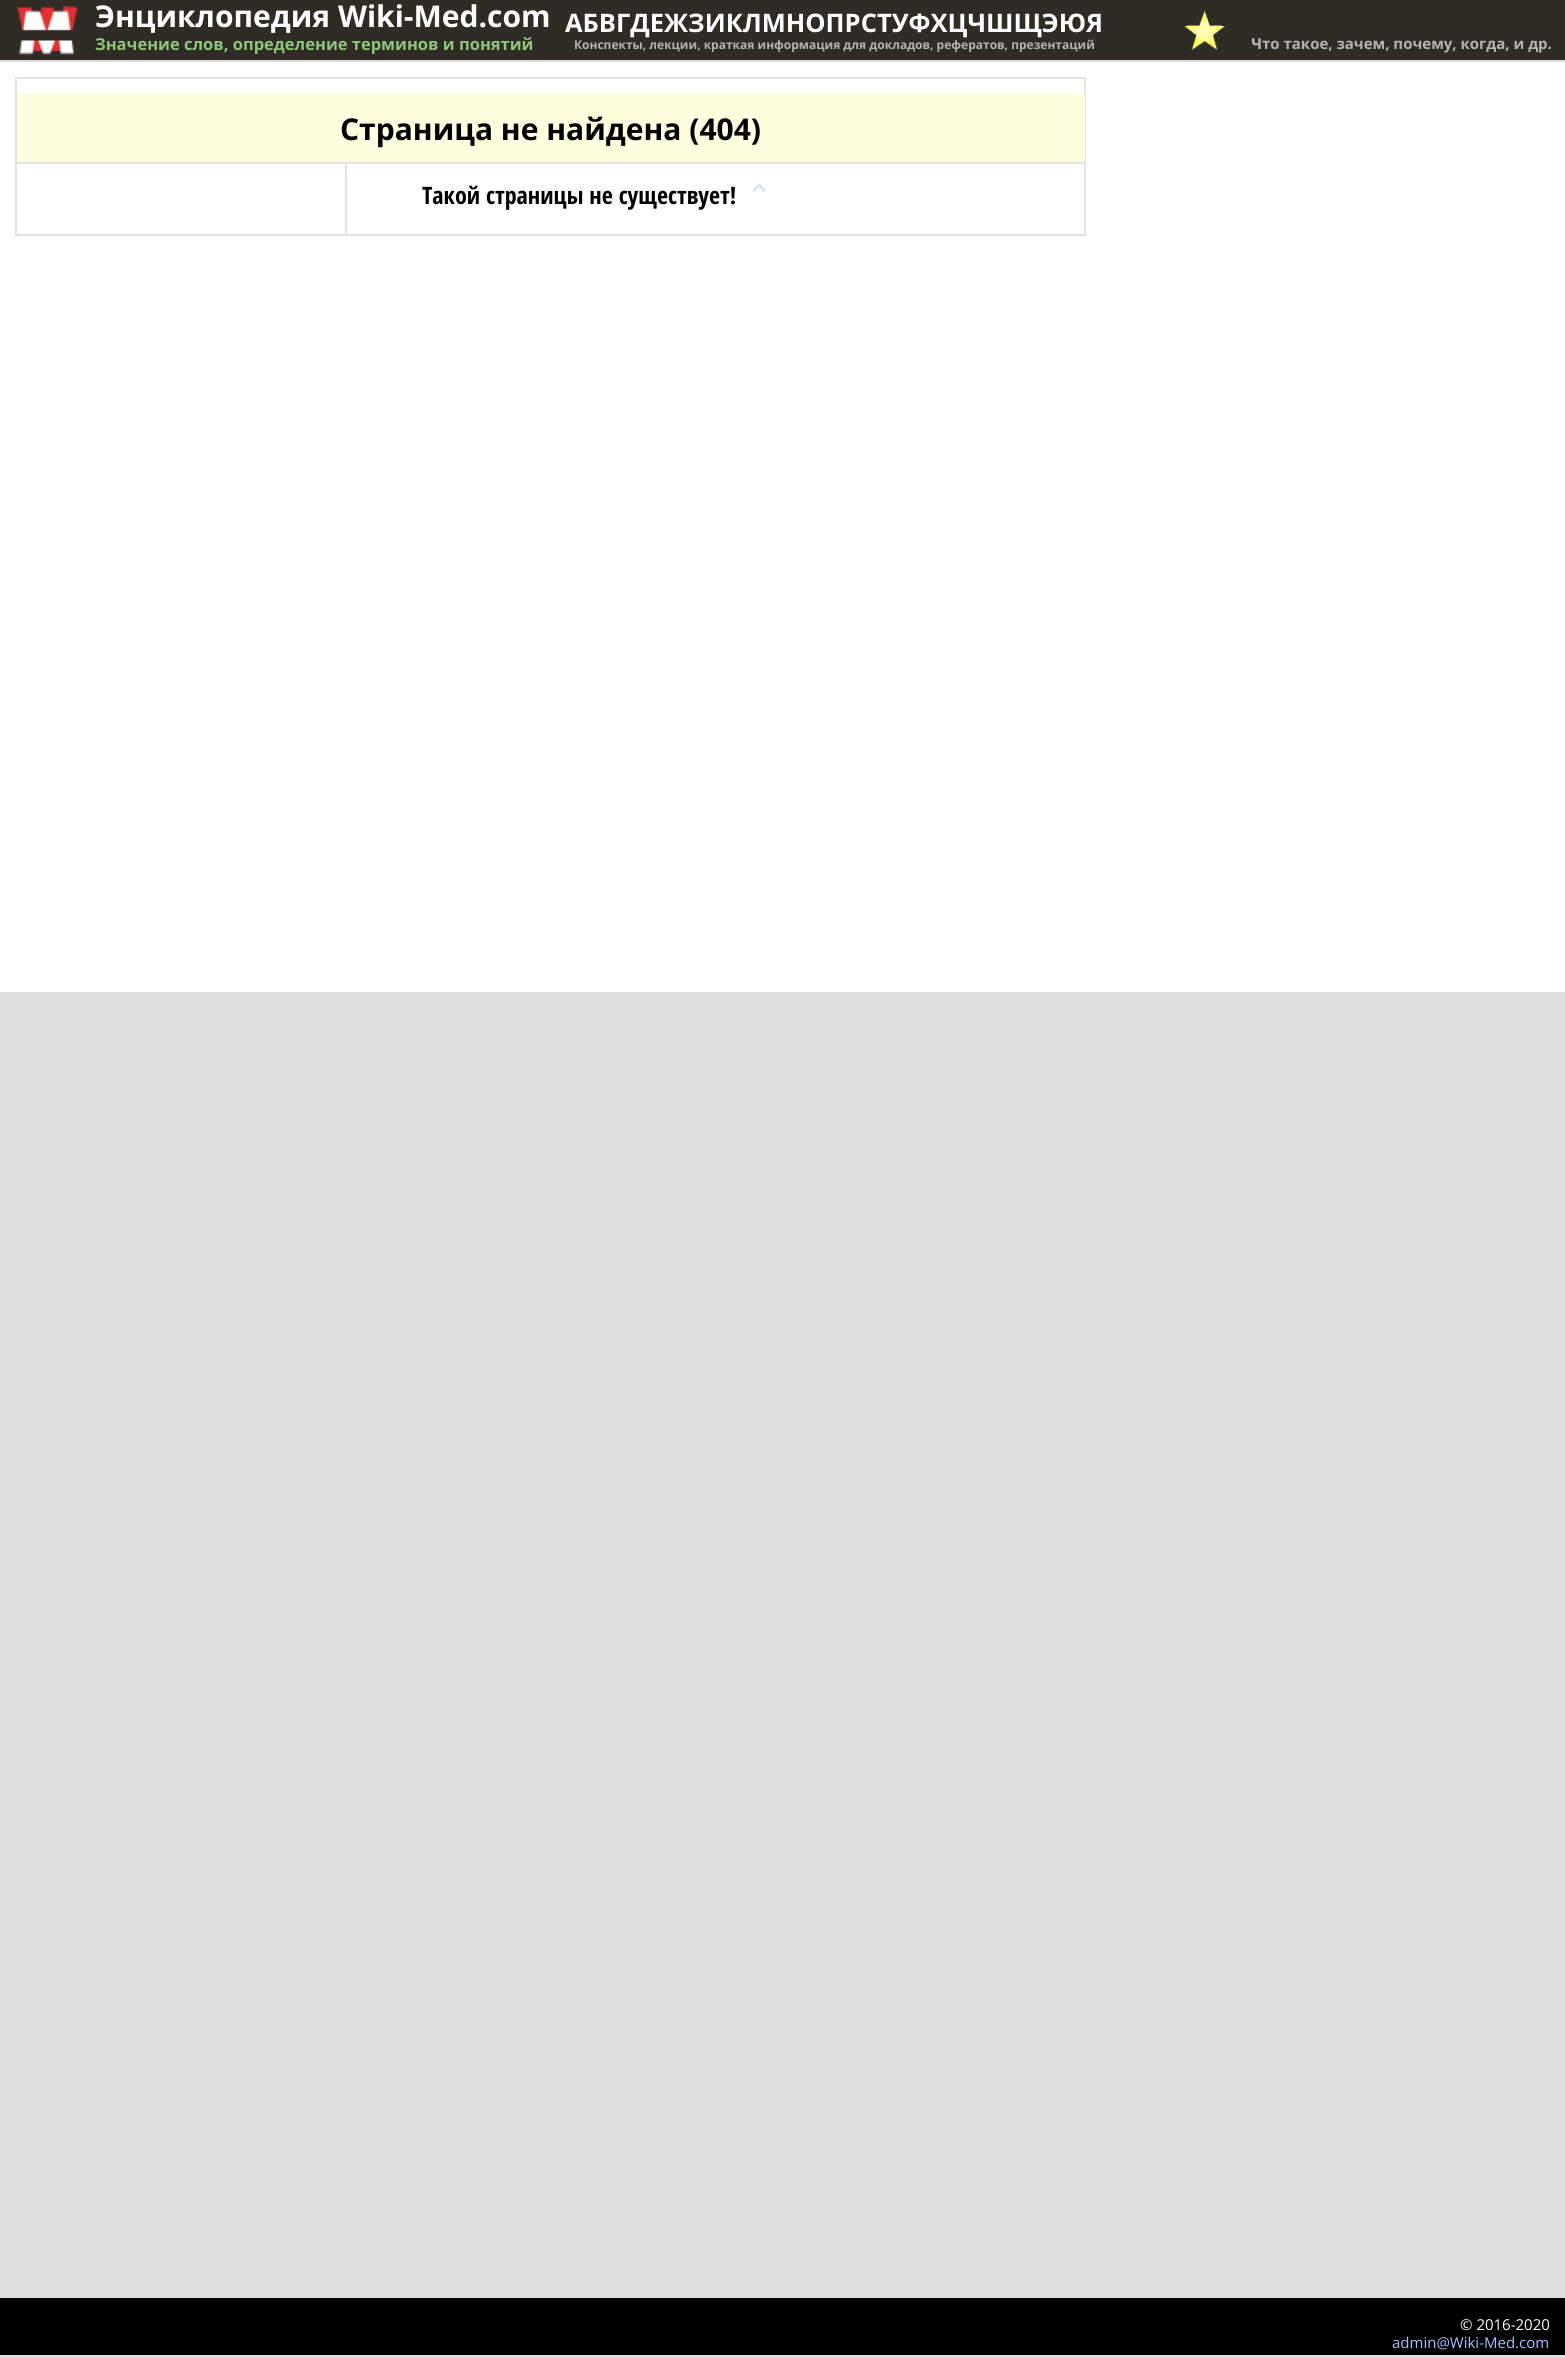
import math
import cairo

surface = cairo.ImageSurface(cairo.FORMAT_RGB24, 1565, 2358)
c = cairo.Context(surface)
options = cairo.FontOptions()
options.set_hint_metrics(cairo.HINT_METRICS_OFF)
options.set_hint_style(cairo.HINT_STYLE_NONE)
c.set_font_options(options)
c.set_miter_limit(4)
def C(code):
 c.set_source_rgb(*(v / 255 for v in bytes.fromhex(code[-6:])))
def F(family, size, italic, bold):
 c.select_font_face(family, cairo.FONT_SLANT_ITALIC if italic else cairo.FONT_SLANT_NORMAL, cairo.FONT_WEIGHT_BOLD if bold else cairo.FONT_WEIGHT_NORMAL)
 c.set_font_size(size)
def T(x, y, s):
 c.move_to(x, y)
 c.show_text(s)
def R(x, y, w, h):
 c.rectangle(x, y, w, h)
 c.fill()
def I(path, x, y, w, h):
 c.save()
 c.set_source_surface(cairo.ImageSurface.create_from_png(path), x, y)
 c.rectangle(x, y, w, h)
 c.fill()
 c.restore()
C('dddddd')
c.paint()
C('2f2c25')
R(0,0,1565,60)
I('1.png',16,5,63,50)
F('Open Sans',30,0,1)
C('ffffff')
T(95,27,'Энциклопедия Wiki-Med.com')
F('Open Sans',16.5,0,1)
C('90c47c')
T(95,50,'Значение слов, определение терминов и понятий')
F('Open Sans',25.5,0,1)
C('ffffff')
T(565,32,'АБВГДЕЖЗИКЛМНОПРСТУФХЦЧШЩЭЮЯ')
F('Open Sans',12,0,1)
C('b3b3b3')
T(574,49,'Конспекты, лекции, краткая информация для докладов, рефератов, презентаций')
I('2.png',1183,10,43,41)
F('Noto Sans ExtraBold',15,0,0)
T(1251,49,'Ч')
F('Open Sans',15,0,1)
T(1262,49,'то такое, зачем, почему, когда, и др.')
C('ffffff')
R(0,62,1565,930)
c.rectangle(16,78,1069,157)
C('e3e3e3')
c.stroke()
C('ffffe0')
R(17,93,1068,69)
F('Open Sans',30,0,1)
C('000000')
T(340,140,'Страница не найдена (404)')
C('e3e3e3')
R(17,162,1068,2)
R(345,164,2,70)
F('Open Sans Condensed',24,0,1)
C('000000')
T(422,204,'Такой страницы не существует!')
I('3.png',752,183,14,9)
R(0,2298,1565,57)
F('Open Sans',15,0,0)
C('ffffff')
T(1460,2330,'© 2016-2020')
C('abbeff')
T(1392,2348,'admin@Wiki-Med.com')
surface.write_to_png('o.png')
